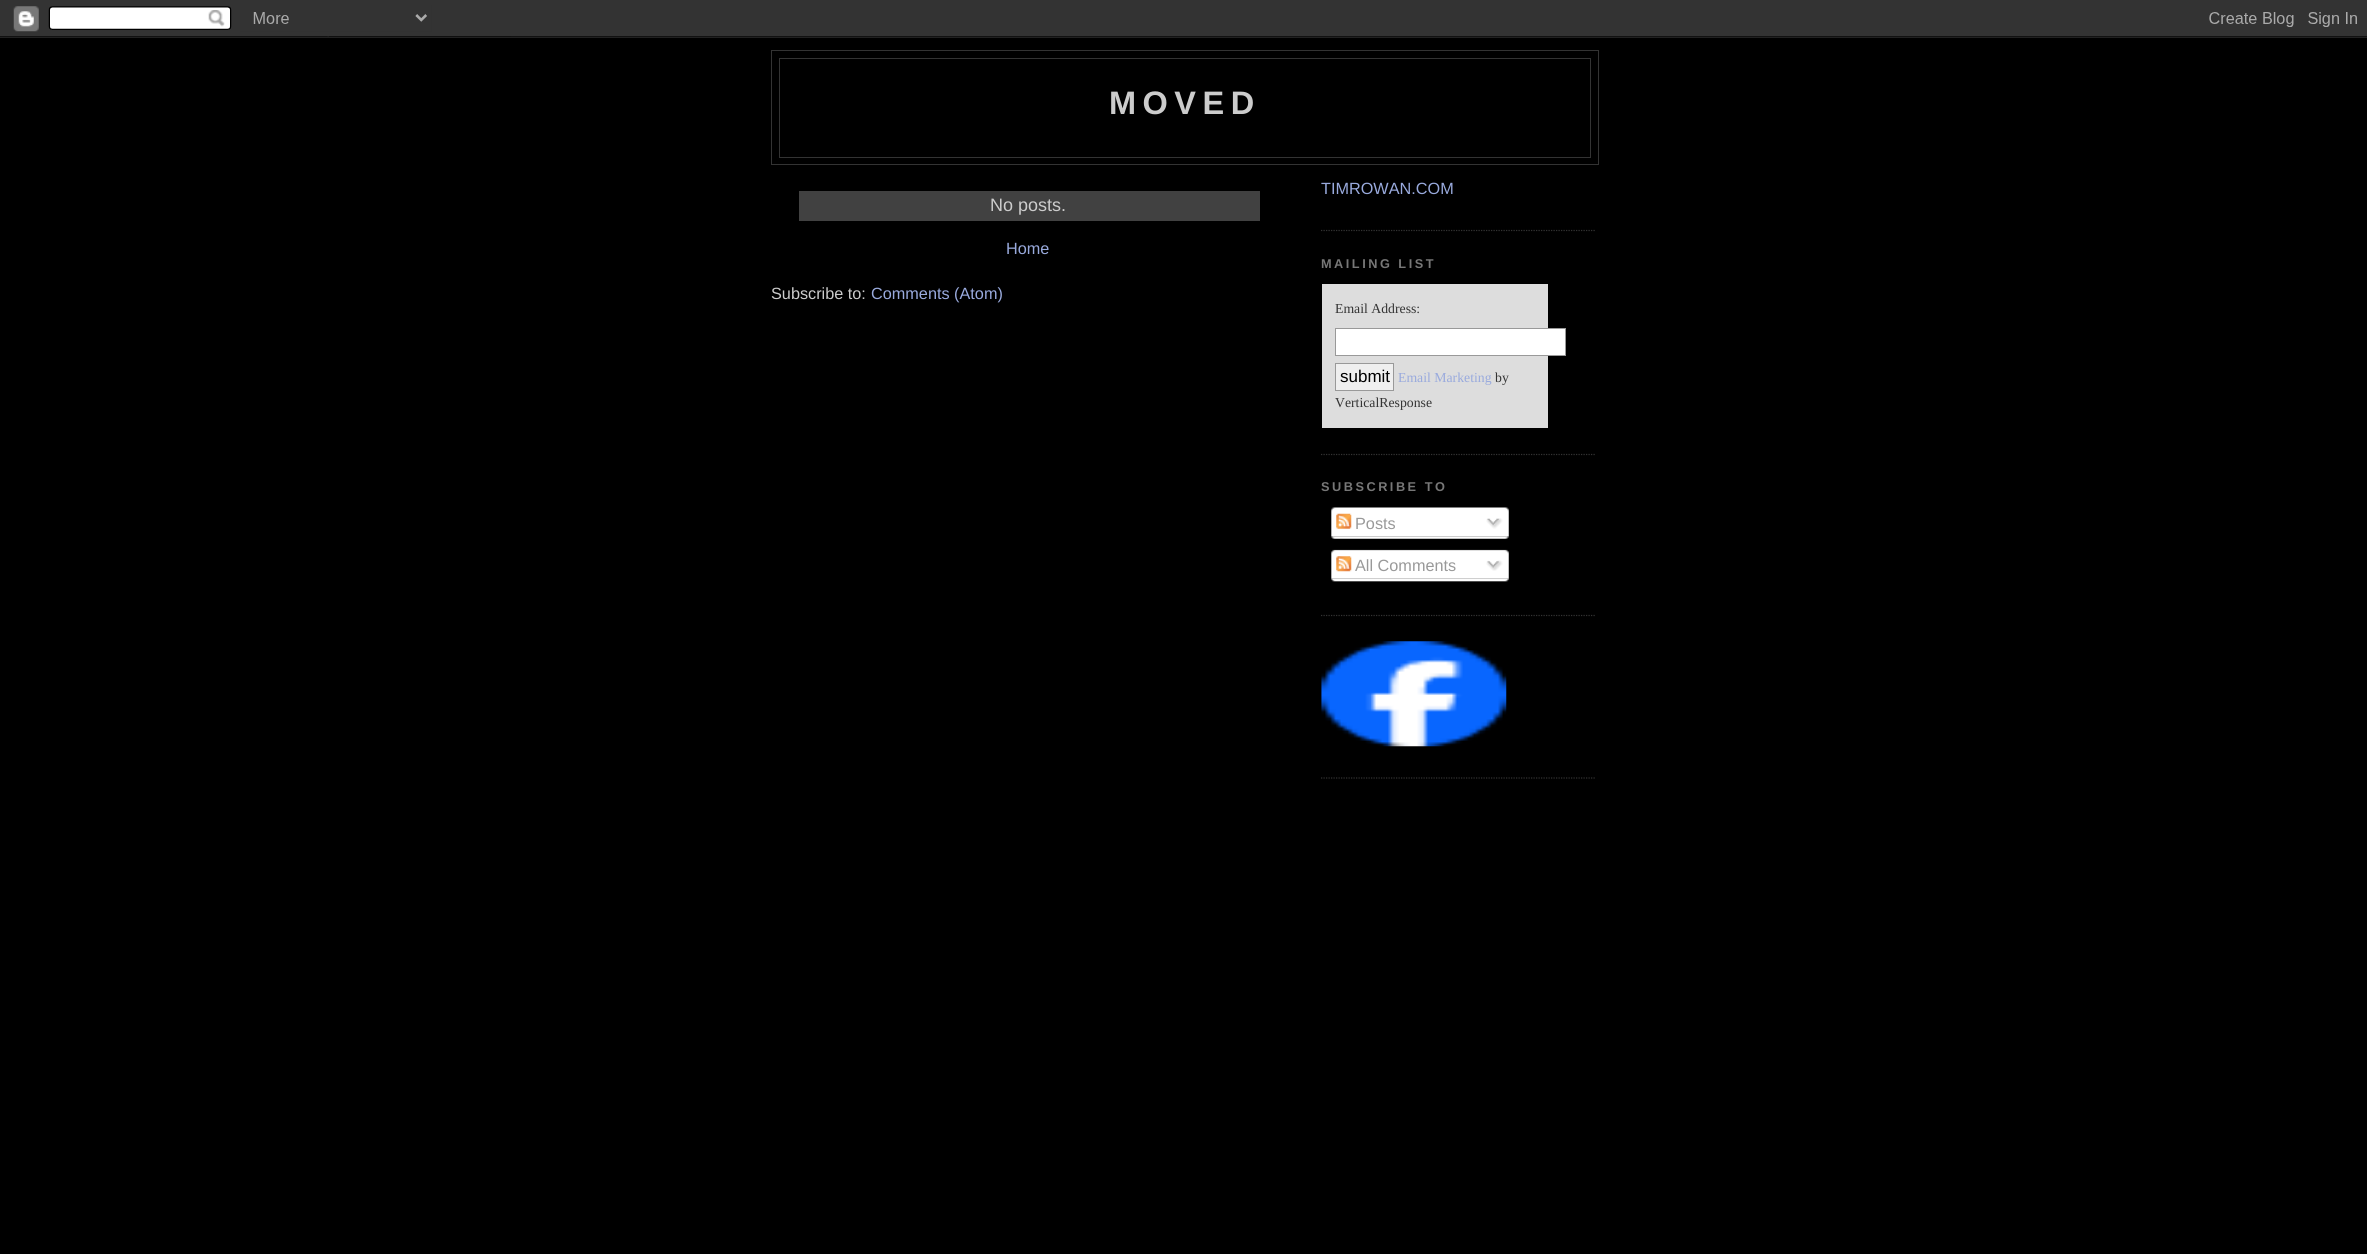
import math
import cairo

surface = cairo.ImageSurface(cairo.FORMAT_RGB24, 2367, 1254)
c = cairo.Context(surface)
options = cairo.FontOptions()
options.set_hint_metrics(cairo.HINT_METRICS_OFF)
options.set_hint_style(cairo.HINT_STYLE_NONE)
c.set_font_options(options)
c.set_miter_limit(4)
def C(code):
 c.set_source_rgb(*(v / 255 for v in bytes.fromhex(code[-6:])))
def F(family, size, italic, bold):
 c.select_font_face(family, cairo.FONT_SLANT_ITALIC if italic else cairo.FONT_SLANT_NORMAL, cairo.FONT_WEIGHT_BOLD if bold else cairo.FONT_WEIGHT_NORMAL)
 c.set_font_size(size)
def T(x, y, s):
 c.move_to(x, y)
 c.show_text(s)
def L(x, y, s, letter, word):
 c.move_to(x, y)
 for ch in s:
  c.show_text(ch)
  c.rel_move_to(letter + word * (ch == ' '), 0)
def R(x, y, w, h):
 c.rectangle(x, y, w, h)
 c.fill()
def I(path, x, y, w, h):
 c.save()
 c.set_source_surface(cairo.ImageSurface.create_from_png(path), x, y)
 c.rectangle(x, y, w, h)
 c.fill()
 c.restore()
C('000000')
c.paint()
I('1.png',0,0,2367,38)
c.rectangle(771.5,50.5,827,114)
C('333333')
c.set_line_width(1)
c.stroke()
c.rectangle(779.5,58.5,811,99)
c.stroke()
F('Liberation Sans',32.5,0,1)
C('cccccc')
L(1109,114,'MOVED',6.5,0)
C('414141')
R(799,191,461,30)
F('Liberation Sans',18,0,0)
C('cccccc')
T(990,211,'No posts.')
F('Liberation Sans',16.25,0,0)
C('99aadd')
T(1006,254,'Home')
C('cccccc')
T(771,299,'Subscribe to:')
C('99aadd')
T(871,299,'Comments (Atom)')
c.new_path()
c.move_to(1321,230.5)
c.line_to(1596,230.5)
C('333333')
c.set_line_width(1.2)
c.set_dash([1.25,1.25])
c.stroke()
C('99aadd')
T(1321,194,'TIMROWAN.COM')
c.new_path()
c.move_to(1321,454.5)
c.line_to(1596,454.5)
C('333333')
c.stroke()
F('Liberation Sans',12.75,0,1)
C('777777')
L(1321,268,'MAILING LIST',2.5,0)
C('dddddd')
R(1322,284,226,144)
F('Liberation Serif',13.75,0,0)
C('333333')
T(1335,313,'Email Address:')
C('ffffff')
c.rectangle(1335.5,328.5,230,27)
c.fill_preserve()
C('999999')
c.set_line_width(1)
c.set_dash([])
c.stroke()
C('efefef')
c.rectangle(1335.5,363.5,58,27)
c.fill_preserve()
C('999999')
c.stroke()
F('Liberation Sans',17,0,0)
C('000000')
T(1340,382,'submit')
F('Liberation Serif',13.75,0,0)
C('99aadd')
T(1398,382,'Email Marketing')
C('333333')
T(1495,382,'by')
T(1335,407,'VerticalResponse')
c.new_path()
c.move_to(1321,615.5)
c.line_to(1596,615.5)
c.set_line_width(1.2)
c.set_dash([1.25,1.25])
c.stroke()
F('Liberation Sans',12.75,0,1)
C('777777')
L(1321,491,'SUBSCRIBE TO',2.5,0)
I('2.png',1331,507,178,30)
I('3.png',1336,513,16,16)
F('Liberation Sans',16.25,0,0)
C('999999')
T(1355,529,'Posts')
I('4.png',1486,518,17,11)
I('5.png',1331,536,178,3)
I('6.png',1331,549,178,30)
I('7.png',1336,556,16,16)
T(1355,571,'All Comments')
I('8.png',1486,560,17,11)
I('9.png',1331,578,178,4)
c.new_path()
c.move_to(1321,778)
c.line_to(1596,778)
C('333333')
c.stroke()
I('10.png',1321,641,186,106)
surface.write_to_png('o.png')
